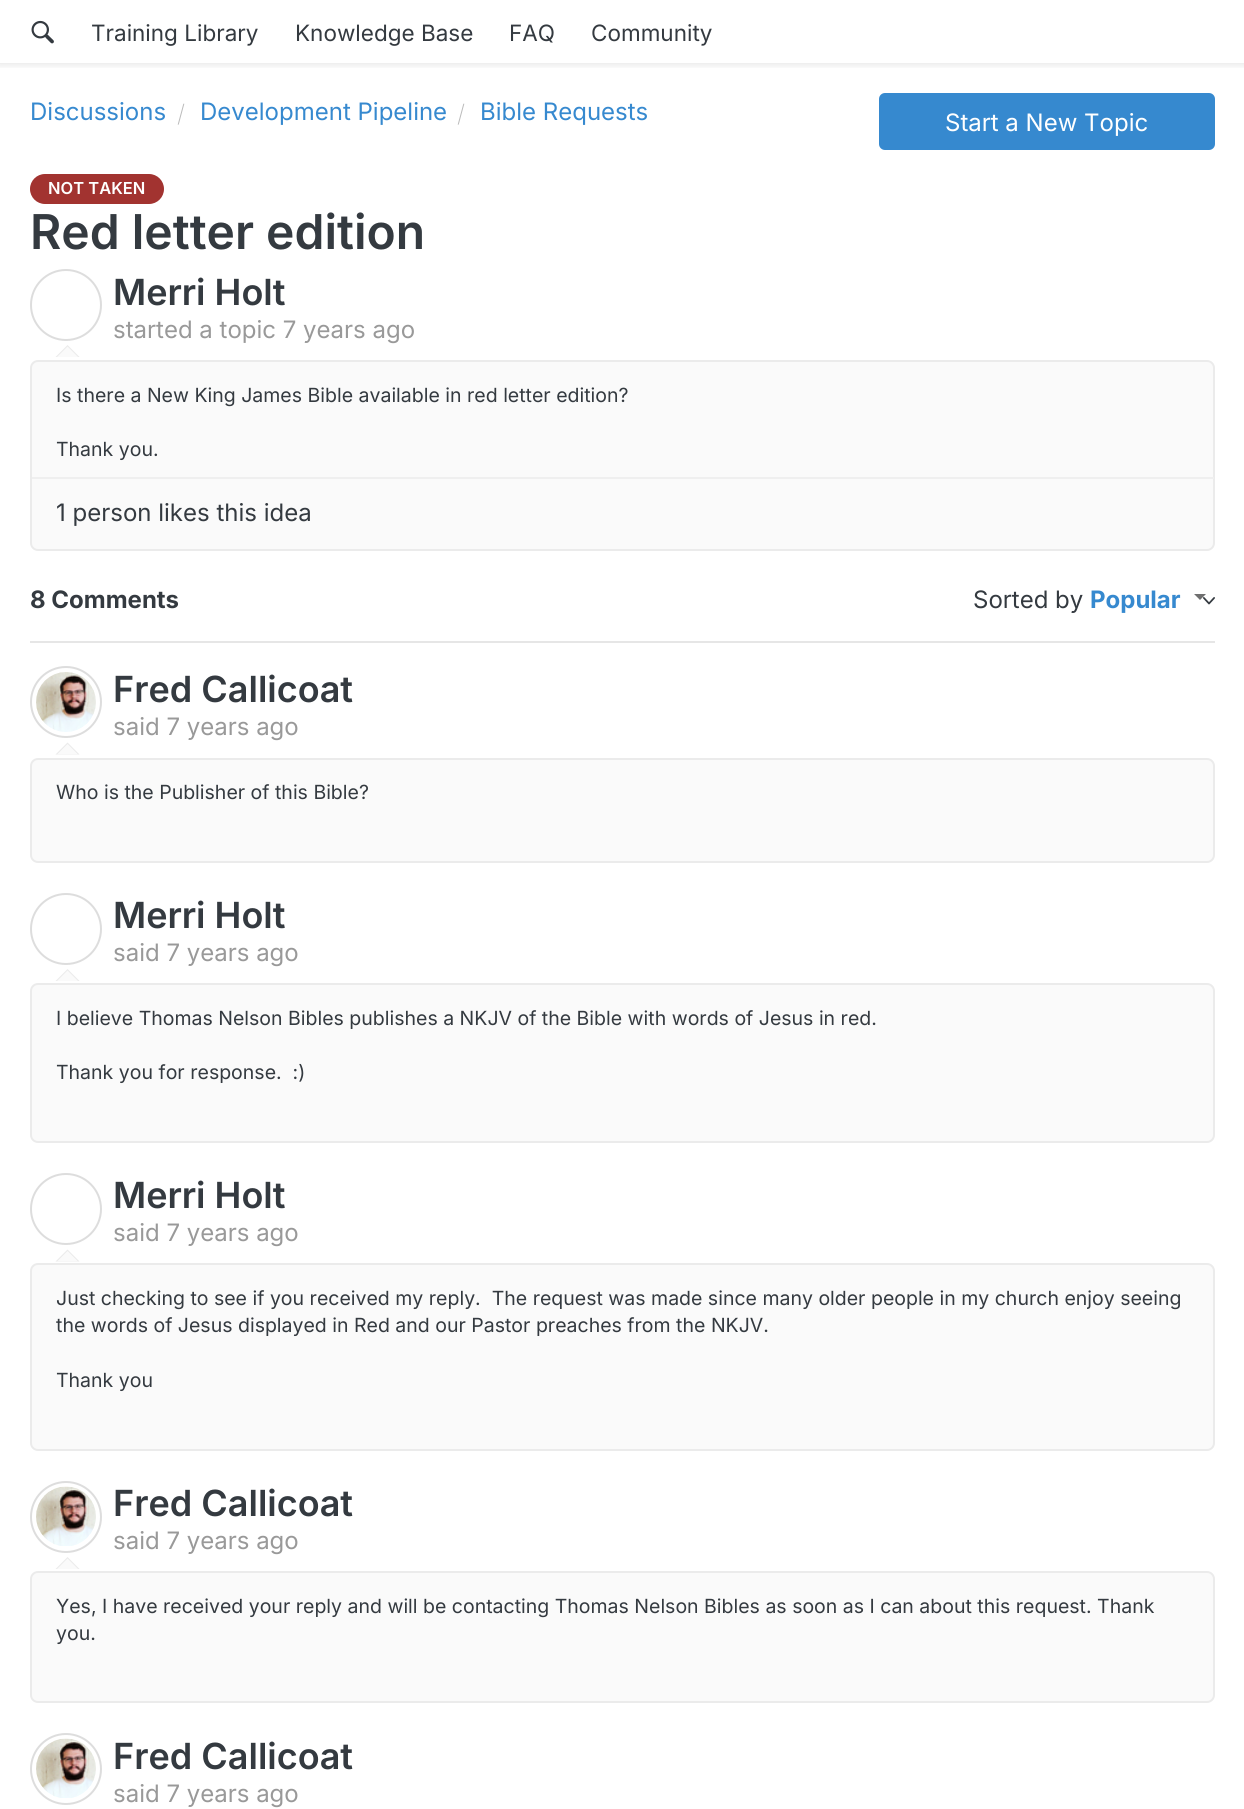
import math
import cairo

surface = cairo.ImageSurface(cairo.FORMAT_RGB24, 1244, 1809)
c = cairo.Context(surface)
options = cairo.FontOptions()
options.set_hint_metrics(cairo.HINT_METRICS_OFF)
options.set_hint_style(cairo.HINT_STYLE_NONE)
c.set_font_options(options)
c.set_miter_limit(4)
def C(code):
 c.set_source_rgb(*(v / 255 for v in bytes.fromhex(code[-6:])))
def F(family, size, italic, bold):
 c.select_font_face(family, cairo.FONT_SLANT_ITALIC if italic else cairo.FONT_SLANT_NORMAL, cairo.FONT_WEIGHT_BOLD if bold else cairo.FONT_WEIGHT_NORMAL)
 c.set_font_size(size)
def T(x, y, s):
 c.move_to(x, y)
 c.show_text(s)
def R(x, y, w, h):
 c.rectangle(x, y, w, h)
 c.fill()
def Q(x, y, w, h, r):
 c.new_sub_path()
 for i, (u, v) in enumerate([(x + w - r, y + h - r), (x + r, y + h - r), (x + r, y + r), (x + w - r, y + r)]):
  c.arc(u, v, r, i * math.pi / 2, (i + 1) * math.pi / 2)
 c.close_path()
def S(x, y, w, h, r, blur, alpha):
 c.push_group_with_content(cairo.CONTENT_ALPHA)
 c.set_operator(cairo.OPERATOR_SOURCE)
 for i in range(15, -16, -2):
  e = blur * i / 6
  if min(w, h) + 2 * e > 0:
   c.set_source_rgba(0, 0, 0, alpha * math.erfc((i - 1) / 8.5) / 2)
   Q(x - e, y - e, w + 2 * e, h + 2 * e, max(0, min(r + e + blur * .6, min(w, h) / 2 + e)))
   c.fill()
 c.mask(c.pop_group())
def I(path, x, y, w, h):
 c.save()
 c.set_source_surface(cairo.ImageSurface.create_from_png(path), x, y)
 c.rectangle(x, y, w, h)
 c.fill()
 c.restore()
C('ffffff')
c.paint()
c.save()
c.rectangle(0,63,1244,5)
c.clip()
C('000000')
S(-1,-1,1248,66,0,4,.1)
c.restore()
I('1.png',31,20,23,24)
F('Inter',22.5,0,0)
C('343a40')
T(91,41,'Training Library')
T(295,41,'Knowledge Base')
T(509,41,'FAQ')
T(591,41,'Community')
F('Inter',24,0,0)
C('3689cf')
T(30,120,'Discussions')
F('Inter ExtraLight',24,0,0)
C('bbbbbb')
T(177,122,'/')
F('Inter',24,0,0)
C('3689cf')
T(200,120,'Development Pipeline')
F('Inter ExtraLight',24,0,0)
C('bbbbbb')
T(457,122,'/')
F('Inter',24,0,0)
C('3689cf')
T(480,120,'Bible Requests')
Q(880,94,334,55,5)
c.fill_preserve()
c.stroke()
C('ffffff')
T(945,131,'Start a New Topic')
C('a23330')
Q(30,174,134,30,15)
c.fill()
F('Inter SemiBold',16.5,0,0)
C('ffffff')
T(48,194,'NOT TAKEN')
F('Inter SemiBold',48,0,0)
C('343a40')
T(30,249,'Red letter edition')
c.new_path()
c.arc(66,305,35,0,2 * math.pi)
C('dddddd')
c.stroke()
C('ebebeb')
c.new_path()
c.move_to(79.5,357)
c.line_to(55.5,357)
c.line_to(67.5,345)
c.close_path()
c.fill()
C('fafafa')
c.new_path()
c.move_to(78,357)
c.line_to(57,357)
c.line_to(67.5,346.5)
c.close_path()
c.fill()
F('Inter SemiBold',36,0,0)
C('343a40')
T(113,305,'Merri Holt')
F('Inter',24,0,0)
C('999999')
T(113,338,'started a topic 7 years ago')
C('fafafa')
Q(31,361,1183,189,7)
c.fill_preserve()
C('ebebeb')
c.stroke()
F('Inter',19.5,0,0)
C('343a40')
T(56,402,'Is there a New King James Bible available in red letter edition?')
T(56,456,'Thank you.')
C('efefef')
R(32,477,1182,2)
F('Inter',24,0,0)
C('343a40')
T(56,521,'1 person likes this idea')
F('Inter',24,0,1)
T(30,608,'8 Comments')
F('Inter',24,0,0)
T(973,608,'Sorted by')
F('Inter',24,0,1)
C('3689cf')
T(1090,608,'Popular')
C('6f6f6f')
c.new_path()
c.move_to(1194,594)
c.line_to(1206,594)
c.line_to(1200,600)
c.close_path()
c.fill()
I('2.png',1203,597,12,8)
C('e6e6e6')
R(30,641,1185,2)
c.arc(66,702,35,0,2 * math.pi)
C('dddddd')
c.stroke()
I('3.png',36,672,60,60)
C('ebebeb')
c.new_path()
c.move_to(79.5,754.5)
c.line_to(55.5,754.5)
c.line_to(67.5,742.5)
c.close_path()
c.fill()
C('fafafa')
c.new_path()
c.move_to(78,754.5)
c.line_to(57,754.5)
c.line_to(67.5,744)
c.close_path()
c.fill()
F('Inter SemiBold',36,0,0)
C('343a40')
T(113,702,'Fred Callicoat')
F('Inter',24,0,0)
C('999999')
T(113,735,'said 7 years ago')
C('fafafa')
Q(31,759,1183,103,7)
c.fill_preserve()
C('ebebeb')
c.stroke()
F('Inter',19.5,0,0)
C('343a40')
T(56,799,'Who is the Publisher of this Bible?')
c.new_path()
c.arc(66,929,35,0,2 * math.pi)
C('dddddd')
c.stroke()
C('ebebeb')
c.new_path()
c.move_to(79.5,981)
c.line_to(55.5,981)
c.line_to(67.5,969)
c.close_path()
c.fill()
C('fafafa')
c.new_path()
c.move_to(78,981)
c.line_to(57,981)
c.line_to(67.5,970.5)
c.close_path()
c.fill()
F('Inter SemiBold',36,0,0)
C('343a40')
T(113,928,'Merri Holt')
F('Inter',24,0,0)
C('999999')
T(113,961,'said 7 years ago')
C('fafafa')
Q(31,984,1183,158,7)
c.fill_preserve()
C('ebebeb')
c.stroke()
F('Inter',19.5,0,0)
C('343a40')
T(56,1025,'I believe Thomas Nelson Bibles publishes a NKJV of the Bible with words of Jesus in red.')
T(56,1079,'Thank you for response.  :)')
c.new_path()
c.arc(66,1209,35,0,2 * math.pi)
C('dddddd')
c.stroke()
C('ebebeb')
c.new_path()
c.move_to(79.5,1261.5)
c.line_to(55.5,1261.5)
c.line_to(67.5,1249.5)
c.close_path()
c.fill()
C('fafafa')
c.new_path()
c.move_to(78,1261.5)
c.line_to(57,1261.5)
c.line_to(67.5,1251)
c.close_path()
c.fill()
F('Inter SemiBold',36,0,0)
C('343a40')
T(113,1208,'Merri Holt')
F('Inter',24,0,0)
C('999999')
T(113,1241,'said 7 years ago')
C('fafafa')
Q(31,1264,1183,186,7)
c.fill_preserve()
C('ebebeb')
c.stroke()
F('Inter',19.5,0,0)
C('343a40')
T(56,1305,'Just checking to see if you received my reply.  The request was made since many older people in my church enjoy seeing')
T(56,1332,'the words of Jesus displayed in Red and our Pastor preaches from the NKJV.')
T(56,1387,'Thank you')
c.new_path()
c.arc(66,1517,35,0,2 * math.pi)
C('dddddd')
c.stroke()
I('4.png',36,1486,60,60)
C('ebebeb')
c.new_path()
c.move_to(79.5,1569)
c.line_to(55.5,1569)
c.line_to(67.5,1557)
c.close_path()
c.fill()
C('fafafa')
c.new_path()
c.move_to(78,1569)
c.line_to(57,1569)
c.line_to(67.5,1558.5)
c.close_path()
c.fill()
F('Inter SemiBold',36,0,0)
C('343a40')
T(113,1516,'Fred Callicoat')
F('Inter',24,0,0)
C('999999')
T(113,1549,'said 7 years ago')
C('fafafa')
Q(31,1572,1183,130,7)
c.fill_preserve()
C('ebebeb')
c.stroke()
F('Inter',19.5,0,0)
C('343a40')
T(56,1613,'Yes, I have received your reply and will be contacting Thomas Nelson Bibles as soon as I can about this request. Thank')
T(56,1640,'you.')
c.new_path()
c.arc(66,1769,35,0,2 * math.pi)
C('dddddd')
c.stroke()
I('5.png',36,1738,60,60)
F('Inter SemiBold',36,0,0)
C('343a40')
T(113,1769,'Fred Callicoat')
F('Inter',24,0,0)
C('999999')
T(113,1802,'said 7 years ago')
surface.write_to_png('o.png')
